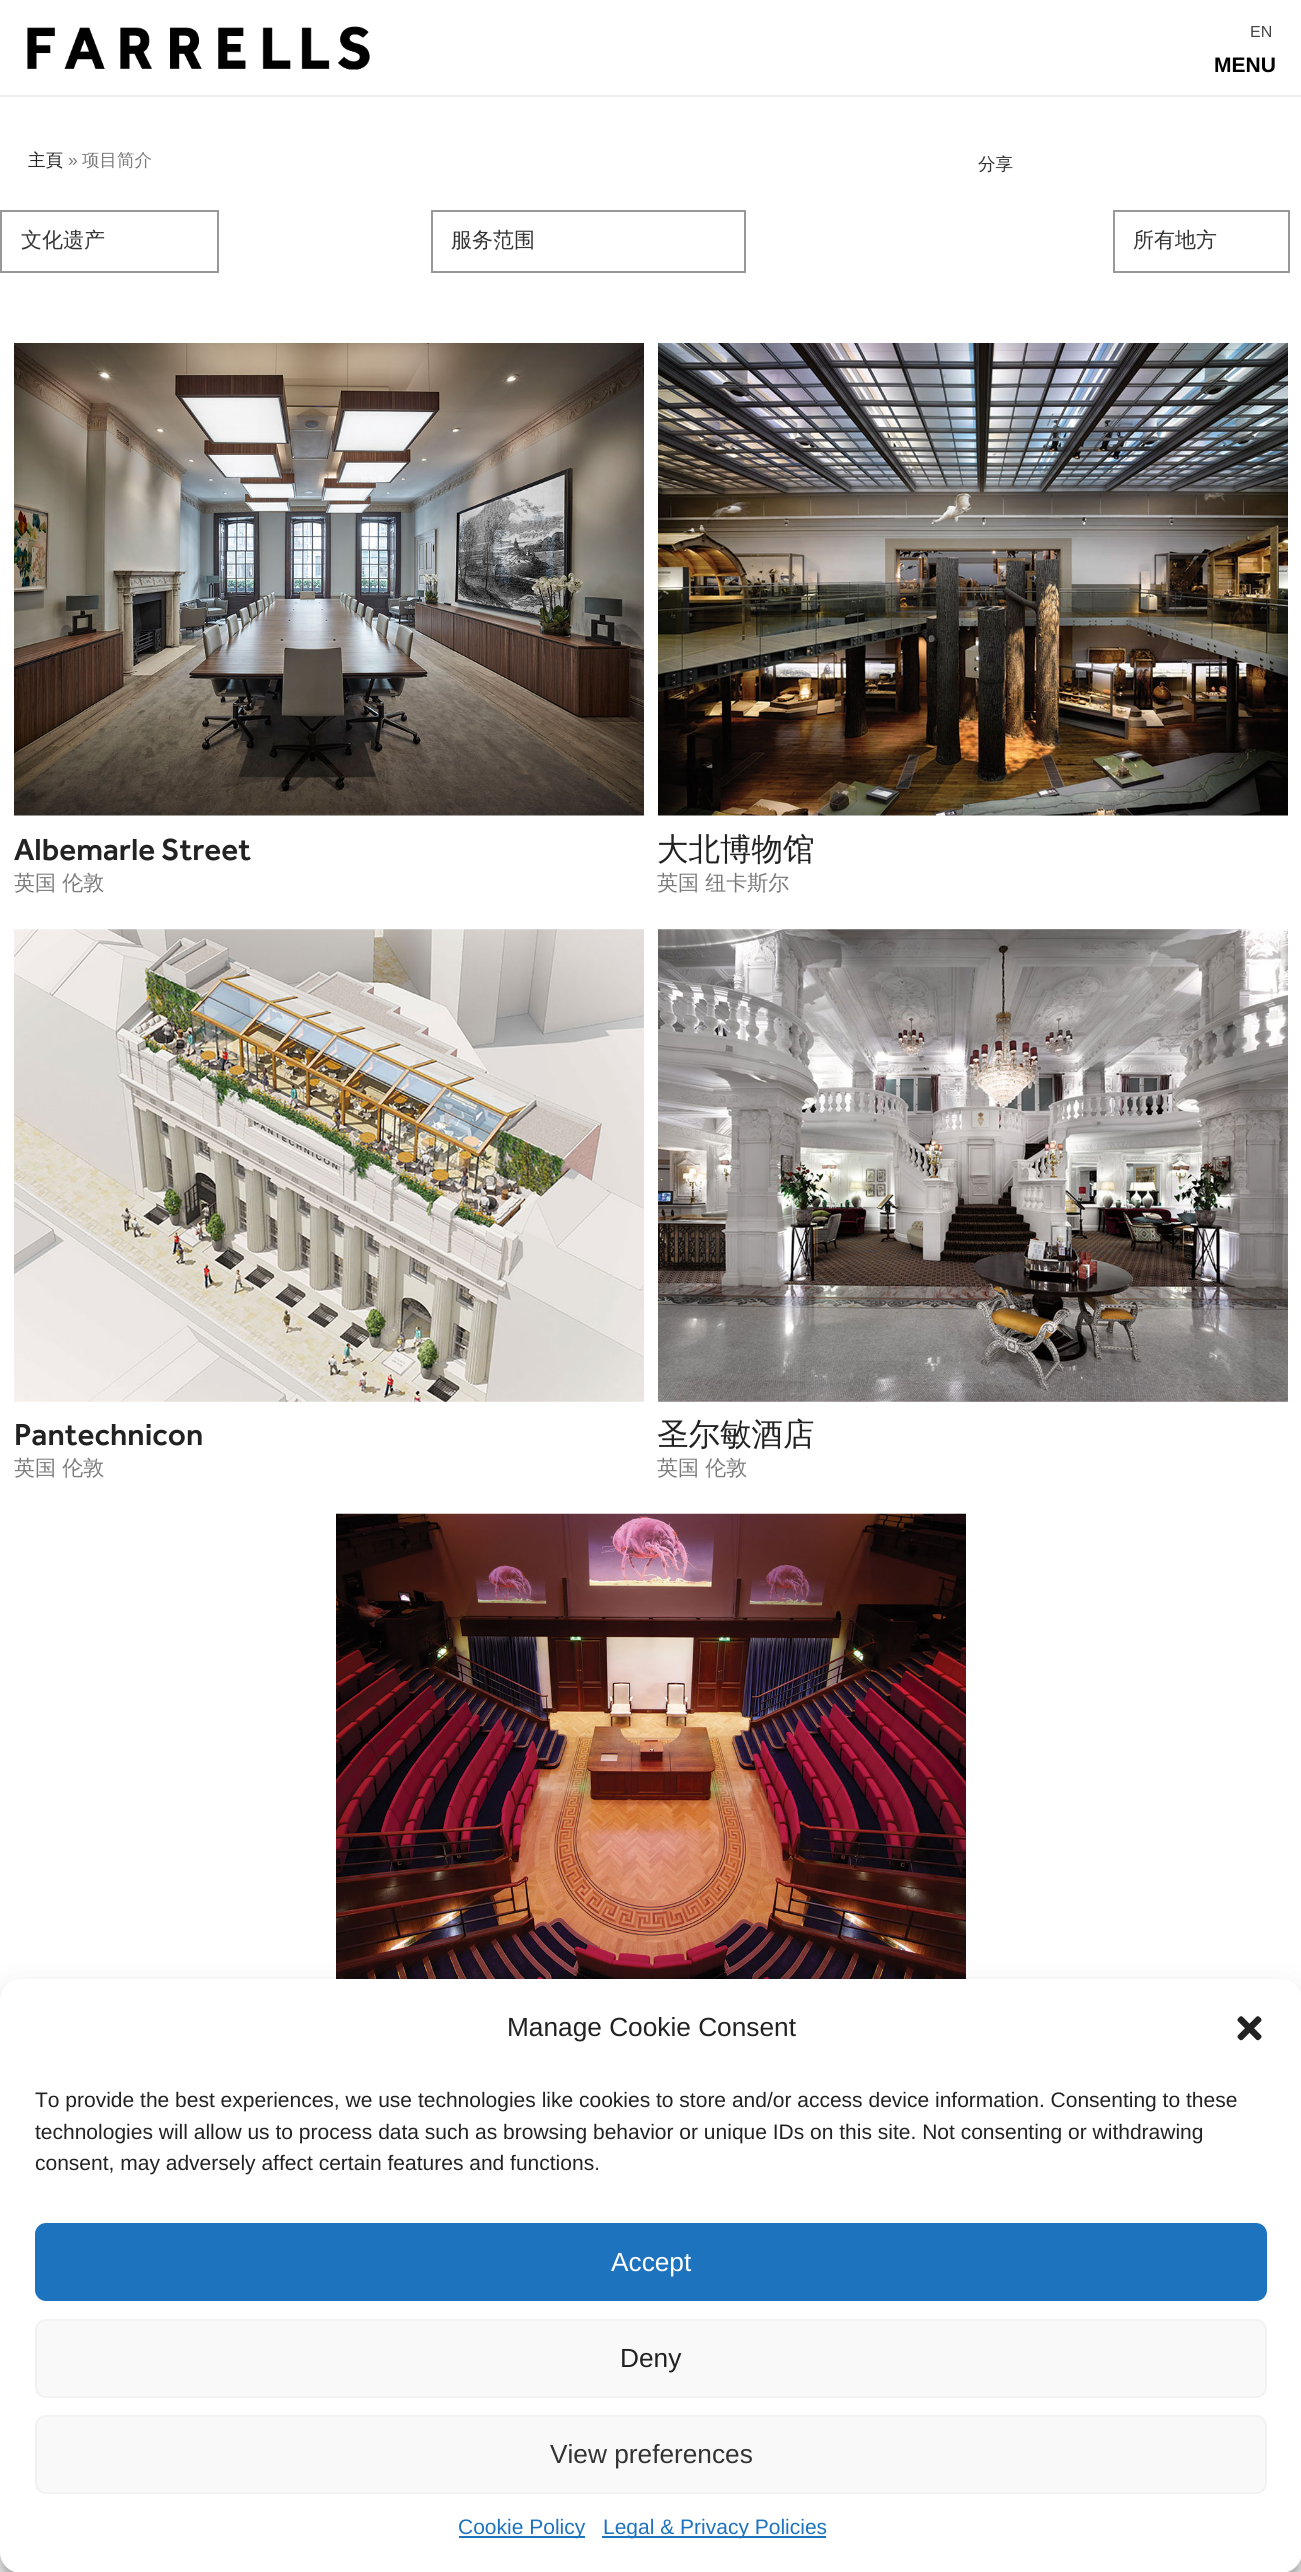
import math
import cairo

surface = cairo.ImageSurface(cairo.FORMAT_RGB24, 1301, 2572)
c = cairo.Context(surface)
options = cairo.FontOptions()
options.set_hint_metrics(cairo.HINT_METRICS_OFF)
options.set_hint_style(cairo.HINT_STYLE_NONE)
c.set_font_options(options)
c.set_miter_limit(4)
def C(code):
 c.set_source_rgb(*(v / 255 for v in bytes.fromhex(code[-6:])))
def F(family, size, italic, bold):
 c.select_font_face(family, cairo.FONT_SLANT_ITALIC if italic else cairo.FONT_SLANT_NORMAL, cairo.FONT_WEIGHT_BOLD if bold else cairo.FONT_WEIGHT_NORMAL)
 c.set_font_size(size)
def T(x, y, s):
 c.move_to(x, y)
 c.show_text(s)
def R(x, y, w, h):
 c.rectangle(x, y, w, h)
 c.fill()
def Q(x, y, w, h, r):
 c.new_sub_path()
 for i, (u, v) in enumerate([(x + w - r, y + h - r), (x + r, y + h - r), (x + r, y + r), (x + w - r, y + r)]):
  c.arc(u, v, r, i * math.pi / 2, (i + 1) * math.pi / 2)
 c.close_path()
def S(x, y, w, h, r, blur, alpha):
 c.push_group_with_content(cairo.CONTENT_ALPHA)
 c.set_operator(cairo.OPERATOR_SOURCE)
 for i in range(15, -16, -2):
  e = blur * i / 6
  if min(w, h) + 2 * e > 0:
   c.set_source_rgba(0, 0, 0, alpha * math.erfc((i - 1) / 8.5) / 2)
   Q(x - e, y - e, w + 2 * e, h + 2 * e, max(0, min(r + e + blur * .6, min(w, h) / 2 + e)))
   c.fill()
 c.mask(c.pop_group())
def I(path, x, y, w, h):
 c.save()
 c.set_source_surface(cairo.ImageSurface.create_from_png(path), x, y)
 c.rectangle(x, y, w, h)
 c.fill()
 c.restore()
C('ffffff')
c.paint()
F('Liberation Sans',16,0,0)
C('444444')
T(1250,37,'EN')
C('eeeeee')
R(0,95,1301,2)
I('1.png',27,26,343,44)
F('Liberation Sans',21,0,1)
C('000000')
T(1214,72,'MENU')
F('WenQuanYi Zen Hei Medium',17.5,0,0)
C('222222')
T(28,166,'主頁')
F('Liberation Sans',17.5,0,0)
C('7b7b7b')
T(68,166,'»')
F('WenQuanYi Zen Hei Medium',17.5,0,0)
T(82,166,'项目简介')
C('333333')
T(978,170,'分享')
c.rectangle(1,211,217,61)
C('989898')
c.stroke()
F('WenQuanYi Zen Hei Medium',21,0,0)
C('333333')
T(21,247,'文化遗产')
c.rectangle(432,211,313,61)
C('989898')
c.stroke()
C('333333')
T(451,247,'服务范围')
c.rectangle(1114,211,175,61)
C('989898')
c.stroke()
C('333333')
T(1133,247,'所有地方')
I('2.png',14,343,630,473)
F('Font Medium',31.5,0,0)
C('222222')
T(14,860,'Albemarle Street')
F('WenQuanYi Zen Hei Medium',21,0,0)
C('7b7b7b')
T(14,890,'英国 伦敦')
I('3.png',658,343,630,473)
F('WenQuanYi Zen Hei Medium',31.5,0,0)
C('222222')
T(657,860,'大北博物馆')
F('WenQuanYi Zen Hei Medium',21,0,0)
C('7b7b7b')
T(657,890,'英国 纽卡斯尔')
I('4.png',14,929,630,473)
F('Font Medium',31.5,0,0)
C('222222')
T(14,1445,'Pantechnicon')
F('WenQuanYi Zen Hei Medium',21,0,0)
C('7b7b7b')
T(14,1475,'英国 伦敦')
I('5.png',658,929,630,473)
F('WenQuanYi Zen Hei Medium',31.5,0,0)
C('222222')
T(657,1445,'圣尔敏酒店')
F('WenQuanYi Zen Hei Medium',21,0,0)
C('7b7b7b')
T(657,1475,'英国 伦敦')
I('6.png',336,1513,630,466)
C('000000')
S(0,1990,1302,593,21,5,.23)
S(0,1997,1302,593,21,17.5,.19)
C('ffffff')
Q(0,1979,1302,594,21)
c.fill()
F('Liberation Sans',26.25,0,0)
C('222222')
T(507,2036,'Manage Cookie Consent')
I('7.png',1237,2016,25,25)
F('Liberation Sans',21,0,0)
T(35,2107,'To provide the best experiences, we use technologies like cookies to store and/or access device information. Consenting to these')
T(35,2139,'technologies will allow us to process data such as browsing behavior or unique IDs on this site. Not consenting or withdrawing')
T(35,2170,'consent, may adversely affect certain features and functions.')
C('1e73be')
Q(36,2224,1230,76,10)
c.fill_preserve()
c.stroke()
F('Liberation Sans',26.25,0,0)
C('ffffff')
T(611,2271,'Accept')
C('f9f9f9')
Q(36,2320,1230,77,10)
c.fill_preserve()
C('f2f2f2')
c.stroke()
C('222222')
T(620,2367,'Deny')
C('f9f9f9')
Q(36,2416,1230,77,10)
c.fill_preserve()
C('f2f2f2')
c.stroke()
C('333333')
T(550,2463,'View preferences')
C('1e73be')
R(459,2536,126,2)
F('Liberation Sans',21,0,0)
T(458,2534,'Cookie Policy')
R(602,2536,224,2)
T(603,2534,'Legal & Privacy Policies')
surface.write_to_png('o.png')
